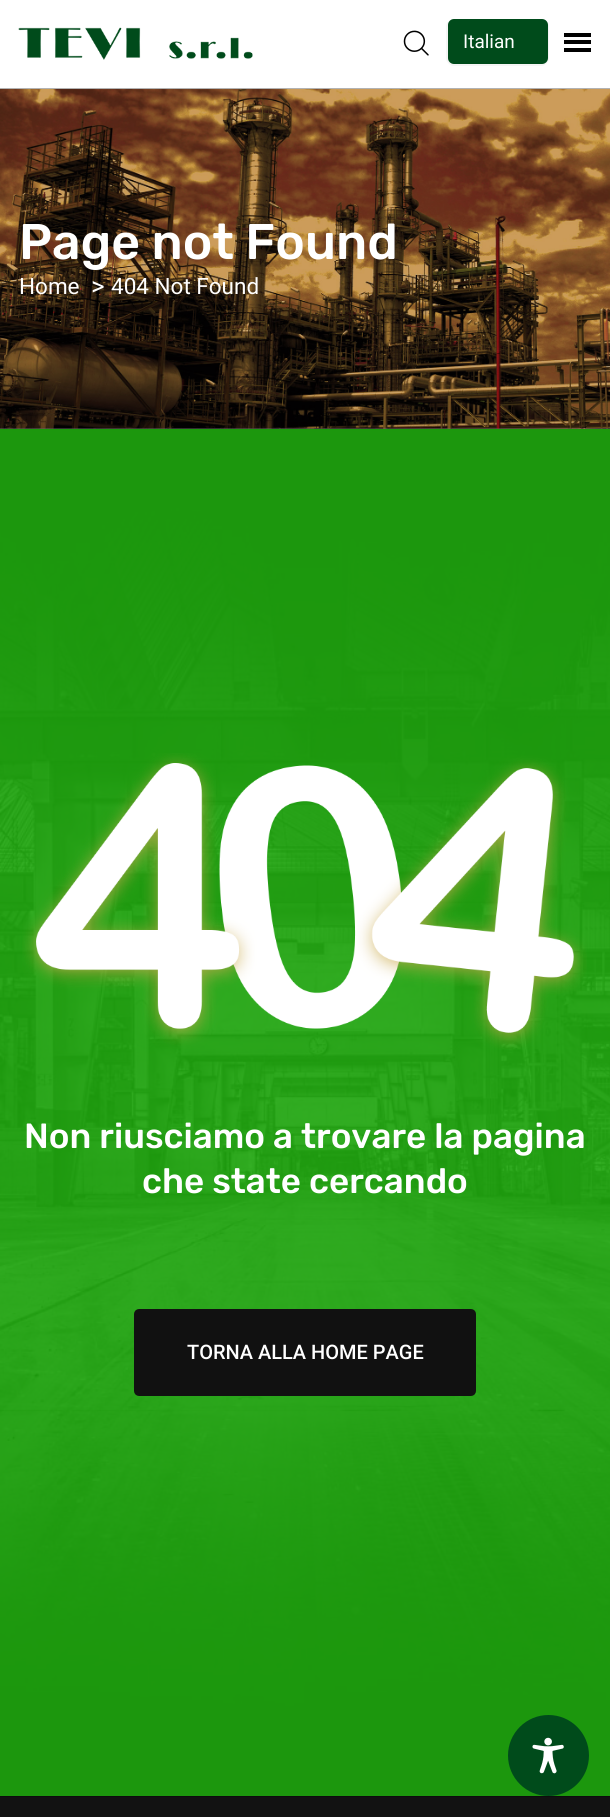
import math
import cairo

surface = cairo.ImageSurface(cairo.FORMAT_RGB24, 610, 1817)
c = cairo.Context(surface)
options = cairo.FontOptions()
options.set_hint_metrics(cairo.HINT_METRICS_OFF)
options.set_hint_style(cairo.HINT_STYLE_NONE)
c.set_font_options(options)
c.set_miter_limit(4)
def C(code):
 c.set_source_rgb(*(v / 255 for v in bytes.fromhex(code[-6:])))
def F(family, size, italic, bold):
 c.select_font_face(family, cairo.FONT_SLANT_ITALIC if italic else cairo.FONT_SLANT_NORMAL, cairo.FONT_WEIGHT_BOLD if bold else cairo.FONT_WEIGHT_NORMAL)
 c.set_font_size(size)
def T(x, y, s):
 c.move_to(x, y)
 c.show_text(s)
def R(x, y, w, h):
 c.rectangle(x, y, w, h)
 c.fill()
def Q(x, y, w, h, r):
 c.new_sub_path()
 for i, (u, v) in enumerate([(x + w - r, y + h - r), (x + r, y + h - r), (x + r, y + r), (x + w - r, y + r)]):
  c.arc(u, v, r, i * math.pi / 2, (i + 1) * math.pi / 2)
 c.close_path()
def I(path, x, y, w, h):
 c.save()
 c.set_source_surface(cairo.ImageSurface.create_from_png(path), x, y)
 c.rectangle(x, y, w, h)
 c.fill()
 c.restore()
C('ffffff')
c.paint()
C('b2b2b2')
R(0,88,610,1)
I('1.png',18,27,235,33)
C('000000')
R(564,33,27,4)
R(564,40,27,4)
R(564,48,27,4)
I('2.png',403,30,26,26)
C('f5f5f5')
c.new_path()
c.move_to(450,20)
c.curve_to(447,22,446,24,446,27)
c.line_to(446,58)
c.curve_to(446,62,450,66,454,66)
c.line_to(541,66)
c.curve_to(545,66,549,62,549,58)
c.line_to(549,27)
c.curve_to(549,24,548,22,545,20)
c.curve_to(547,21,548,23,548,25)
c.line_to(548,58)
c.curve_to(548,61,545,64,541,64)
c.line_to(454,64)
c.curve_to(450,64,448,61,448,58)
c.line_to(448,25)
c.curve_to(448,23,448,21,450,20)
c.close_path()
c.fill()
C('004b1b')
Q(448,19,100,45,6)
c.fill()
F('Roboto',19,0,0)
C('ffffff')
T(463,48,'Italian')
I('3.png',0,89,610,340)
F('Rubik Light',50,0,0)
T(19,259,'Page not Found')
F('Roboto',22.5,0,0)
T(19,294,'Home')
F('Roboto',26,0,0)
T(91,295,'>')
F('Roboto',22.5,0,0)
T(111,294,'404 Not Found')
C('121212')
R(0,1796,610,21)
I('4.png',0,428,610,1369)
I('5.png',22,753,565,297)
F('Rubik Light',35,0,0)
C('ffffff')
T(24,1148,'Non riusciamo a trovare la pagina')
T(142,1193,'che state cercando')
C('111111')
Q(135.5,1310.5,339,84,3.5)
c.fill_preserve()
c.set_line_width(3)
c.stroke()
F('Roboto Medium',20,0,0)
C('ffffff')
T(187,1359,'TORNA ALLA HOME PAGE')
C('004b1b')
c.new_path()
c.arc(548.5,1755.5,40.5,0,2 * math.pi)
c.fill()
I('6.png',532,1737,32,37)
surface.write_to_png('o.png')
